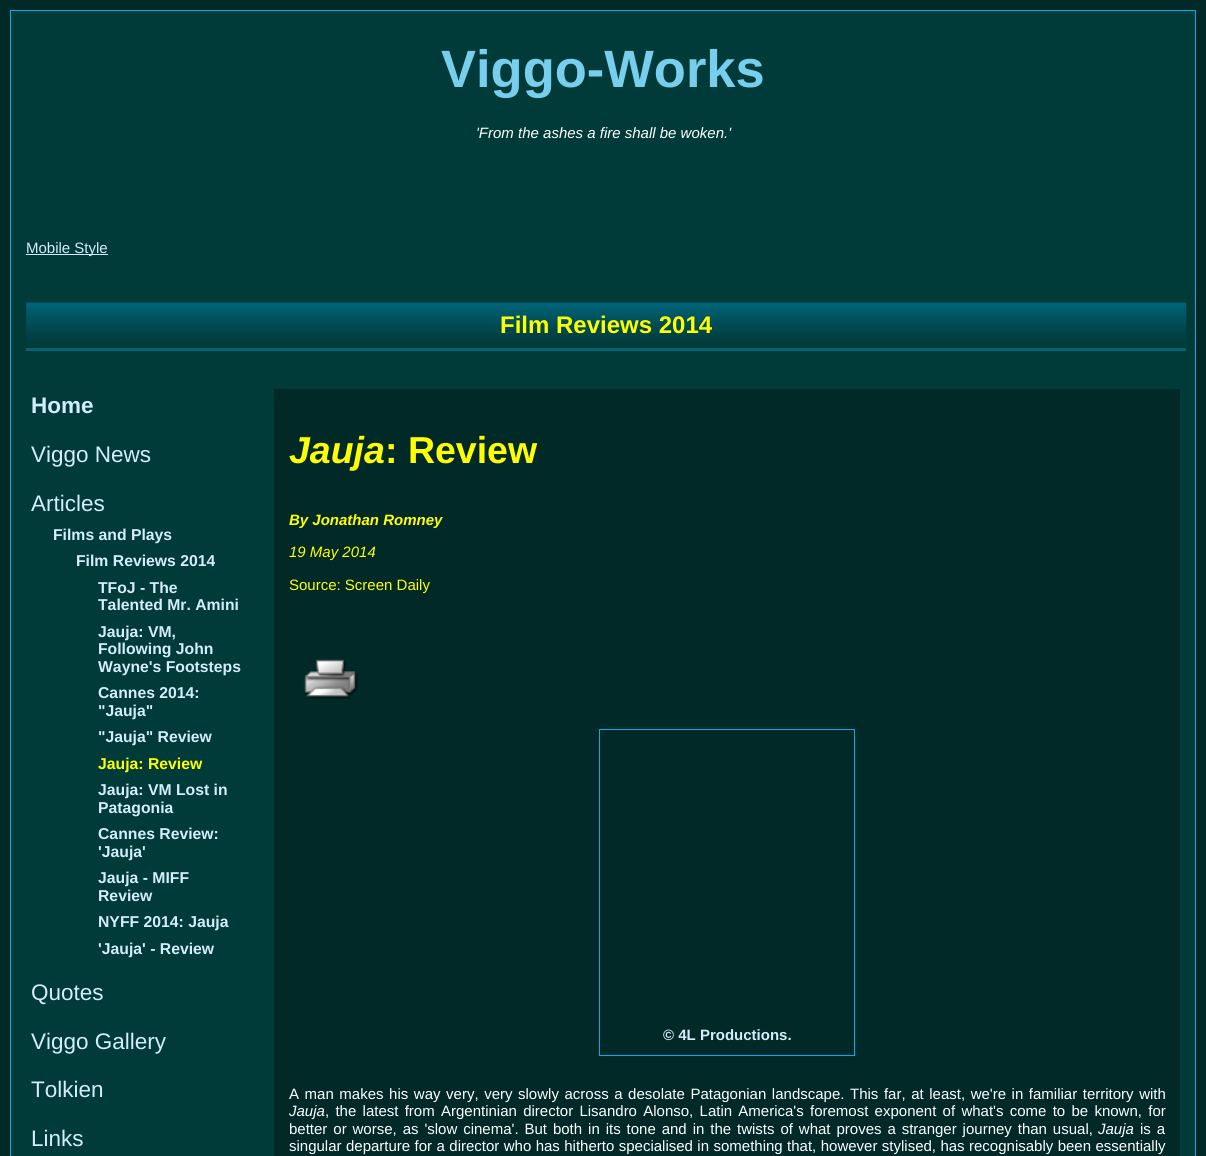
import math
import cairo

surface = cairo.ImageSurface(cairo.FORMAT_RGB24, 1206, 1156)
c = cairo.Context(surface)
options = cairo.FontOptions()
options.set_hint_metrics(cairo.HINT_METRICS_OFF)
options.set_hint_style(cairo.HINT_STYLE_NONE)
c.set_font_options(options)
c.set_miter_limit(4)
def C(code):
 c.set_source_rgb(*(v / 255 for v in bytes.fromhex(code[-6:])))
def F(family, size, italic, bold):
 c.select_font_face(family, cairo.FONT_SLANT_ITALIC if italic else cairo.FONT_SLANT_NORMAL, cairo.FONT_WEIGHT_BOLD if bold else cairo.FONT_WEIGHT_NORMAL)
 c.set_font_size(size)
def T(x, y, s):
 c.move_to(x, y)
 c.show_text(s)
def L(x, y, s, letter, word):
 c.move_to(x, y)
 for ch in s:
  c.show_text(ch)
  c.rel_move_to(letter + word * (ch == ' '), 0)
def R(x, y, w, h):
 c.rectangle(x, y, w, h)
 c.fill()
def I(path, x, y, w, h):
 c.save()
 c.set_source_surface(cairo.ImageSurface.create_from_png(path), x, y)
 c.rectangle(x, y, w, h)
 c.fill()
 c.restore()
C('002927')
c.paint()
C('003b39')
c.rectangle(10.5,10.5,1185,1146)
c.fill_preserve()
C('00aeed')
c.set_line_width(1)
c.stroke()
F('Liberation Sans',52.5,0,1)
C('77ceed')
T(441,87,'Viggo-Works')
F('Liberation Sans',15,1,0)
C('ffffff')
T(476,138,'\'From the ashes a fire shall be woken.\'')
C('d4ecfb')
R(26,254,82,1)
F('Liberation Sans',15,0,0)
T(26,253,'Mobile Style')
I('1.png',26,302,1161,46)
C('006378')
R(26,348,1160,3)
F('Liberation Sans',24,0,1)
C('ffff00')
T(500,333,'Film Reviews 2014')
F('Liberation Sans',22.5,0,1)
C('d4ecfb')
T(31,413,'Home')
F('Liberation Sans',22.5,0,0)
T(31,462,'Viggo News')
T(31,511,'Articles')
F('Liberation Sans',15.75,0,1)
T(53,540,'Films and Plays')
T(76,566,'Film Reviews 2014')
T(98,593,'TFoJ - The')
T(98,610,'Talented Mr. Amini')
T(98,637,'Jauja: VM,')
T(98,654,'Following John')
T(98,672,'Wayne\'s Footsteps')
T(98,698,'Cannes 2014:')
T(98,716,'"Jauja"')
T(98,742,'"Jauja" Review')
C('ffff00')
T(98,769,'Jauja: Review')
C('d4ecfb')
T(98,795,'Jauja: VM Lost in')
T(98,813,'Patagonia')
T(98,839,'Cannes Review:')
T(98,857,'\'Jauja\'')
T(98,883,'Jauja - MIFF')
T(98,901,'Review')
T(98,927,'NYFF 2014: Jauja')
T(98,954,'\'Jauja\' - Review')
F('Liberation Sans',22.5,0,0)
T(31,1000,'Quotes')
T(31,1049,'Viggo Gallery')
T(31,1097,'Tolkien')
T(31,1146,'Links')
C('002927')
R(274,389,906,767)
F('Liberation Sans',37.5,1,1)
C('ffff00')
T(289,463,'Jauja')
F('Liberation Sans',37.5,0,1)
T(385,463,': Review')
F('Liberation Sans',15,1,1)
T(289,525,'By Jonathan Romney')
F('Liberation Sans',15,1,0)
T(289,557,'19 May 2014')
F('Liberation Sans',15,0,0)
T(289,590,'Source: Screen Daily')
I('2.png',303,659,55,40)
c.rectangle(599.5,729.5,255,326)
C('00aeed')
c.stroke()
F('Liberation Sans',15,0,1)
C('d4ecfb')
T(663,1040,'© 4L Productions.')
F('Liberation Sans',15,0,0)
C('ffffff')
L(289,1099,'A man makes his way very, very slowly across a desolate Patagonian landscape. This far, at least, we\'re in familiar territory with',0,1.4)
F('Liberation Sans',15,1,0)
T(289,1116,'Jauja')
F('Liberation Sans',15,0,0)
L(325,1116,', the latest from Argentinian director Lisandro Alonso, Latin America\'s foremost exponent of what\'s come to be known, for',0,2.1)
L(289,1134,'better or worse, as \'slow cinema\'. But both in its tone and in the twists of what proves a stranger journey than usual,',0,1.75)
F('Liberation Sans',15,1,0)
T(1098,1134,'Jauja')
F('Liberation Sans',15,0,0)
L(1140,1134,'is a',0,1.75)
L(289,1151,'singular departure for a director who has hitherto specialised in something that, however stylised, has recognisably been essentially',0,.25)
surface.write_to_png('o.png')
